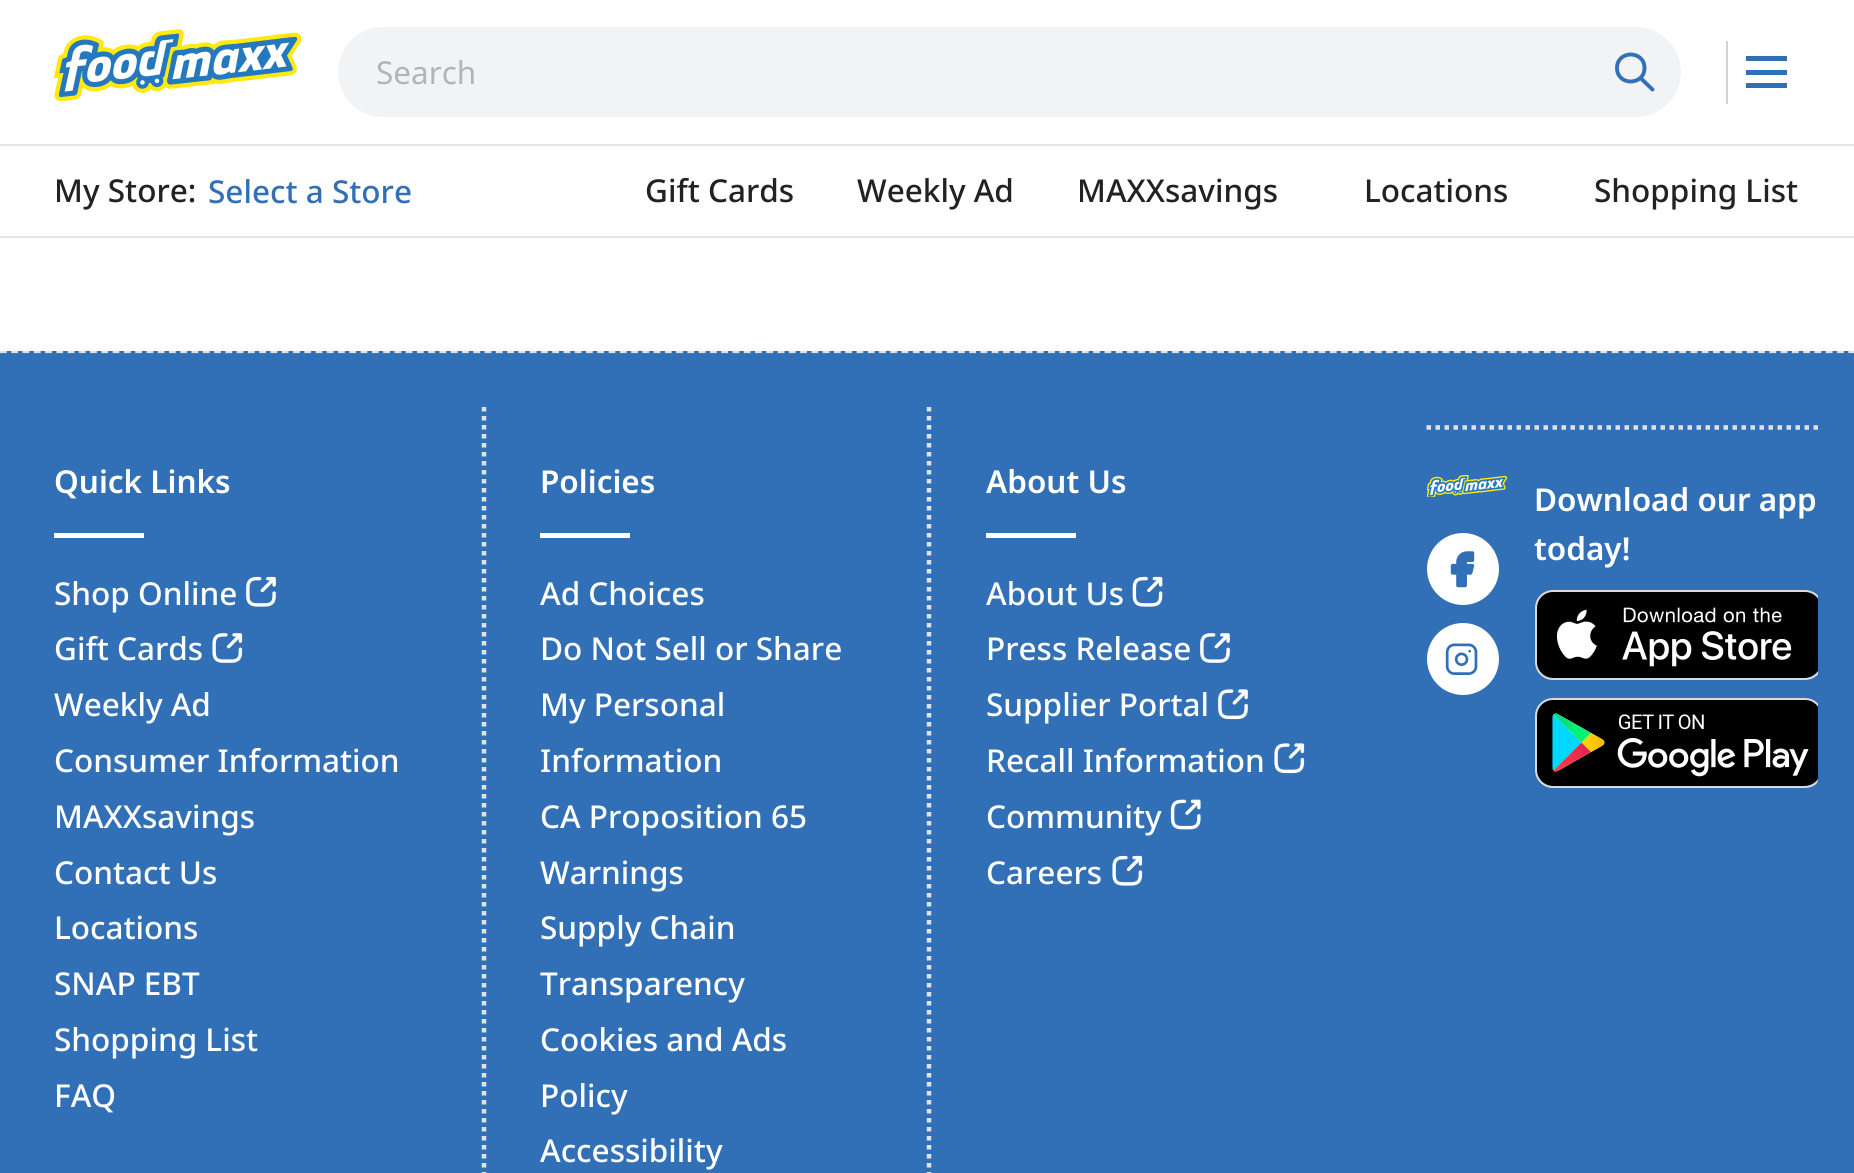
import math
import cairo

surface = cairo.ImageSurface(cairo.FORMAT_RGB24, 1854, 1173)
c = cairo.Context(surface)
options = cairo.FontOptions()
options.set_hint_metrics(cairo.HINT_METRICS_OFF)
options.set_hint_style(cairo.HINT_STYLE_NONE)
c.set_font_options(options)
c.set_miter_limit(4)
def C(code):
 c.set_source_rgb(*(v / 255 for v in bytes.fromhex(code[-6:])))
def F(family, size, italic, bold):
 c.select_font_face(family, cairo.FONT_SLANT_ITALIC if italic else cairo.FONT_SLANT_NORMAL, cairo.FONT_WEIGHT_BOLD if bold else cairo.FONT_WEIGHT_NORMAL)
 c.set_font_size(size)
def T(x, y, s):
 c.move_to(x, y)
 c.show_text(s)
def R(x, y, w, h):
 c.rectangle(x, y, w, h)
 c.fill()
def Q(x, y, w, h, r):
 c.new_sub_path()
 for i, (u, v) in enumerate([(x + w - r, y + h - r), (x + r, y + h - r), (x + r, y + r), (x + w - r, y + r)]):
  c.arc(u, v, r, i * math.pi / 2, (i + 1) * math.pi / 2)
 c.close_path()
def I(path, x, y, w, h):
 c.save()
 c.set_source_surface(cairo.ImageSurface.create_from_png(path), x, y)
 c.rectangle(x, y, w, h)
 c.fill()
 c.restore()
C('ffffff')
c.paint()
I('1.png',54,29,248,72)
C('f1f3f5')
Q(338,27,1343,90,45)
c.fill()
F('Noto Sans',31.5,0,0)
C('adb5bd')
T(376,84,'Search')
c.new_path()
c.move_to(1617,68)
c.curve_to(1617,86,1644.5,86,1644.5,68)
c.curve_to(1644.5,50,1617,50,1617,68)
c.move_to(1652.5,89.5)
c.line_to(1640.5,78)
C('3170b7')
c.set_line_width(3.9)
c.set_line_cap(cairo.LINE_CAP_ROUND)
c.set_line_join(cairo.LINE_JOIN_ROUND)
c.stroke()
C('ced4da')
R(1726,41,2,63)
C('3170b7')
R(1746,70,41,5)
R(1746,56,41,5)
R(1746,83,41,5)
C('e3e7e2')
R(0,144,1854,2)
R(0,236,1854,2)
F('Noto Sans Medium',31.5,0,0)
C('222222')
T(54,202,'My Store:')
C('3170b7')
T(208,203,'Select a Store')
C('222222')
T(645,202,'Gift Cards')
T(857,202,'Weekly Ad')
T(1077,202,'MAXXsavings')
T(1364,202,'Locations')
T(1594,202,'Shopping List')
C('3170b7')
R(0,351,1854,822)
c.new_path()
c.move_to(0,352)
c.line_to(1854,352)
C('dee2e6')
c.set_line_width(2.2)
c.set_line_cap(cairo.LINE_CAP_BUTT)
c.set_line_join(cairo.LINE_JOIN_MITER)
c.set_dash([6.75,4.52])
c.stroke()
F('Noto Sans SemiBold',31.5,0,0)
C('ffffff')
T(54,493,'Quick Links')
R(54,533,90,5)
F('Noto Sans Medium',31.5,0,0)
T(54,605,'Shop Online')
I('2.png',246,576,30,31)
T(54,660,'Gift Cards')
I('3.png',212,633,31,30)
T(54,716,'Weekly Ad')
T(54,772,'Consumer Information')
T(54,828,'MAXXsavings')
T(54,884,'Contact Us')
T(54,939,'Locations')
T(54,995,'SNAP EBT')
T(54,1051,'Shopping List')
T(54,1107,'FAQ')
c.new_path()
c.move_to(484,407)
c.line_to(484,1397)
C('dee2e6')
c.set_line_width(4.5)
c.set_dash([4.5,4.5])
c.stroke()
F('Noto Sans SemiBold',31.5,0,0)
C('ffffff')
T(540,493,'Policies')
R(540,533,90,5)
F('Noto Sans Medium',31.5,0,0)
T(540,605,'Ad Choices')
T(540,660,'Do Not Sell or Share')
T(540,716,'My Personal')
T(540,772,'Information')
T(540,828,'CA Proposition 65')
T(540,884,'Warnings')
T(540,939,'Supply Chain')
T(540,995,'Transparency')
T(540,1051,'Cookies and Ads')
T(540,1107,'Policy')
T(540,1162,'Accessibility')
c.new_path()
c.move_to(929,407)
c.line_to(929,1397)
C('dee2e6')
c.stroke()
F('Noto Sans SemiBold',31.5,0,0)
C('ffffff')
T(986,493,'About Us')
R(986,533,90,5)
F('Noto Sans Medium',31.5,0,0)
T(986,605,'About Us')
I('4.png',1132,576,31,31)
T(986,660,'Press Release')
I('5.png',1200,633,30,30)
T(986,716,'Supplier Portal')
I('6.png',1218,689,30,31)
T(986,772,'Recall Information')
I('7.png',1274,743,31,31)
T(986,828,'Community')
I('8.png',1170,799,31,31)
T(986,884,'Careers')
I('9.png',1112,855,31,31)
c.new_path()
c.move_to(1426.5,427.5)
c.line_to(1818,427.5)
C('dee2e6')
c.stroke()
I('10.png',1427,475,81,22)
C('ffffff')
c.arc(1463,569,36,0,2 * math.pi)
c.fill()
I('11.png',1450,551,25,37)
c.arc(1463,659,36,0,2 * math.pi)
c.fill()
I('12.png',1445,643,33,32)
F('Noto Sans SemiBold',31.5,0,0)
T(1534,511,'Download our app')
T(1534,560,'today!')
I('13.png',1535,590,283,90)
I('14.png',1535,698,283,90)
surface.write_to_png('o.png')
